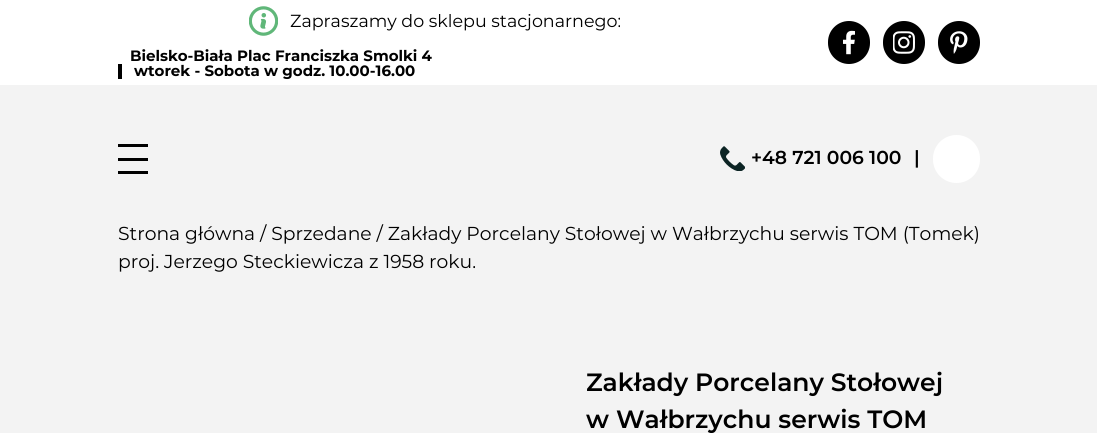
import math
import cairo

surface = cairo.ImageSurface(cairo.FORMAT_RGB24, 1097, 433)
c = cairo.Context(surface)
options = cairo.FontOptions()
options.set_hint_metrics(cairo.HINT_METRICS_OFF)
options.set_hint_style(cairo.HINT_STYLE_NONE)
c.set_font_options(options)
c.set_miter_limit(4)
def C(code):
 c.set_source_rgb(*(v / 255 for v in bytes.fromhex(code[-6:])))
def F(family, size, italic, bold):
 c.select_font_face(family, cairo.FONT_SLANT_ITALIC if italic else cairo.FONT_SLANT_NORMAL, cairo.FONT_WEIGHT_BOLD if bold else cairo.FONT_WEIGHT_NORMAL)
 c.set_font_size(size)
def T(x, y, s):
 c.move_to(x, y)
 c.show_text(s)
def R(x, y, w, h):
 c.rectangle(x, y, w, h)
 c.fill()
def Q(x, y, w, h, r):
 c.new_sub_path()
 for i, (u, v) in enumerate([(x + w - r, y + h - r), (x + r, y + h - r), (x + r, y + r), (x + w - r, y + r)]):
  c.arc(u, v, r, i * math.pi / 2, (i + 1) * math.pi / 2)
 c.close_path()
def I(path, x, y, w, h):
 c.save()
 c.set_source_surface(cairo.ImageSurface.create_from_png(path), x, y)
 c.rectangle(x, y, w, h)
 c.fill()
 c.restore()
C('ffffff')
c.paint()
I('1.png',249,6,29,30)
F('Montserrat',17.5,0,0)
C('000000')
T(290,27,'Zapraszamy do sklepu stacjonarnego:')
F('Montserrat',15,0,1)
T(130,61,'Bielsko-Biała Plac Franciszka Smolki 4')
R(118,64,4,15)
T(134,76,'wtorek - Sobota w godz. 10.00-16.00')
Q(828,21,42,43,21)
c.fill()
I('2.png',843,30,12,25)
Q(883,21,42,43,21)
c.fill()
I('3.png',893,31,22,23)
Q(938,21,42,43,21)
c.fill()
I('4.png',950,31,18,23)
C('f3f3f3')
R(0,85,1097,348)
C('000000')
R(118,144,30,3)
R(118,158,30,3)
R(118,171,30,3)
I('5.png',720,146,25,25)
F('Montserrat SemiBold',18.75,0,0)
T(751,164,'+48 721 006 100')
T(914,164,'|')
C('ffffff')
Q(933,135,47,48,23.5)
c.fill()
F('Montserrat',18.75,0,0)
C('000000')
T(118,240,'Strona główna / Sprzedane / Zakłady Porcelany Stołowej w Wałbrzychu serwis TOM (Tomek)')
T(118,268,'proj. Jerzego Steckiewicza z 1958 roku.')
F('Montserrat SemiBold',25,0,0)
T(586,391,'Zakłady Porcelany Stołowej')
T(586,428,'w Wałbrzychu serwis TOM')
surface.write_to_png('o.png')
